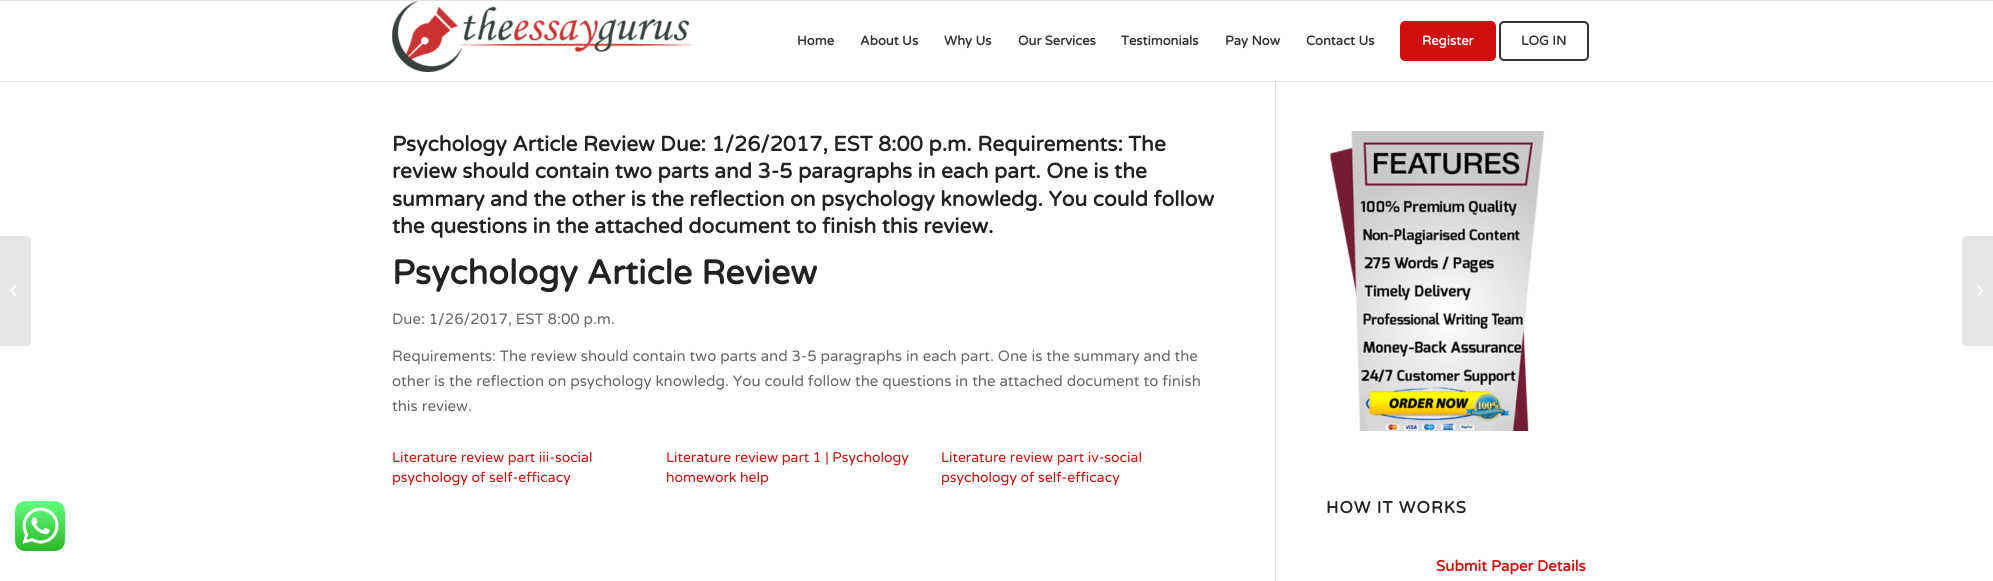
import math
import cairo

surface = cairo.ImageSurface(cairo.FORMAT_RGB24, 1993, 581)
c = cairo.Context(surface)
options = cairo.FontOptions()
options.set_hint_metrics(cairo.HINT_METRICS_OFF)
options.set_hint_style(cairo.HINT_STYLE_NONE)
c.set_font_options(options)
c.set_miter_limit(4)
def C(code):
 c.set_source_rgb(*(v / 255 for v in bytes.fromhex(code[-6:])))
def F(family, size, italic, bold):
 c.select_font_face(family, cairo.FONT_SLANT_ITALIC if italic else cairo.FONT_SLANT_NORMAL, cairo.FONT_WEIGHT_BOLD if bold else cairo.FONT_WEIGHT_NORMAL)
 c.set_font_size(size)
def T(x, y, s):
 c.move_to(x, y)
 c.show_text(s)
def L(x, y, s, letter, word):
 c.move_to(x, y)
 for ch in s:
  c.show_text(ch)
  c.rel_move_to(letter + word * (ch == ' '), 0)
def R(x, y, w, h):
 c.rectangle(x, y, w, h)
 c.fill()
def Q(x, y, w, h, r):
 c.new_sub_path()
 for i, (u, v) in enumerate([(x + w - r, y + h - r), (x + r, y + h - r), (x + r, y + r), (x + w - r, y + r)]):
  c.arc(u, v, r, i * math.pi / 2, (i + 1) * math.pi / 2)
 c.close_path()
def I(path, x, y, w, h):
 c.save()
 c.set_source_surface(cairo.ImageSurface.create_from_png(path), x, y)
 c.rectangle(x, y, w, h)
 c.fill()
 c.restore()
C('ffffff')
c.paint()
I('1.png',15,501,50,50)
C('e1e1e1')
R(0,0,1993,1)
R(1275,81,1,500)
R(0,81,1993,1)
I('2.png',392,1,300,71)
F('Varela Round',13,0,1)
C('333333')
T(797,45,'Home')
T(860,45,'About Us')
T(944,45,'Why Us')
T(1018,45,'Our Services')
T(1121,45,'Testimonials')
T(1225,45,'Pay Now')
T(1306,45,'Contact Us')
C('ce100d')
Q(1401,22,94,38,4)
c.fill_preserve()
c.stroke()
C('ffffff')
T(1422,45,'Register')
Q(1500,22,88,38,4)
C('333333')
c.stroke()
T(1521,45,'LOG IN')
C('e6e6e6')
c.new_path()
c.move_to(0,236)
c.line_to(27,236)
c.curve_to(29,236,31,238,31,240)
c.line_to(31,342)
c.curve_to(31,344,29,346,27,346)
c.line_to(0,346)
c.close_path()
c.fill()
I('3.png',10,285,7,11)
F('Varela Round',21,0,1)
C('222222')
T(392,151,'Psychology Article Review Due: 1/26/2017, EST 8:00 p.m. Requirements: The')
T(392,178,'review should contain two parts and 3-5 paragraphs in each part. One is the')
T(392,206,'summary and the other is the reflection on psychology knowledg. You could follow')
T(392,233,'the questions in the attached document to finish this review.')
F('Varela Round',34,0,1)
T(392,284,'Psychology Article Review')
F('Varela Round',15,0,0)
C('666666')
T(392,324,'Due: 1/26/2017, EST 8:00 p.m.')
T(392,361,'Requirements: The review should contain two parts and 3-5 paragraphs in each part. One is the summary and the')
T(392,386,'other is the reflection on psychology knowledg. You could follow the questions in the attached document to finish')
T(392,411,'this review.')
F('Varela Round',14,0,0)
C('ce100d')
T(392,462,'Literature review part iii-social')
T(392,482,'psychology of self-efficacy')
T(666,462,'Literature review part 1 | Psychology')
T(666,482,'homework help')
T(941,462,'Literature review part iv-social')
T(941,482,'psychology of self-efficacy')
I('4.png',1330,131,215,300)
F('Varela Round',16.5,0,1)
C('222222')
L(1326,513,'HOW IT WORKS',1,0)
F('Varela Round',15,0,1)
C('ce100d')
T(1436,571,'Submit Paper Details')
C('e6e6e6')
c.new_path()
c.move_to(1966,236)
c.line_to(1993,236)
c.line_to(1993,346)
c.line_to(1966,346)
c.curve_to(1964,346,1962,344,1962,342)
c.line_to(1962,240)
c.curve_to(1962,238,1964,236,1966,236)
c.close_path()
c.fill()
I('5.png',1977,285,7,11)
surface.write_to_png('o.png')
